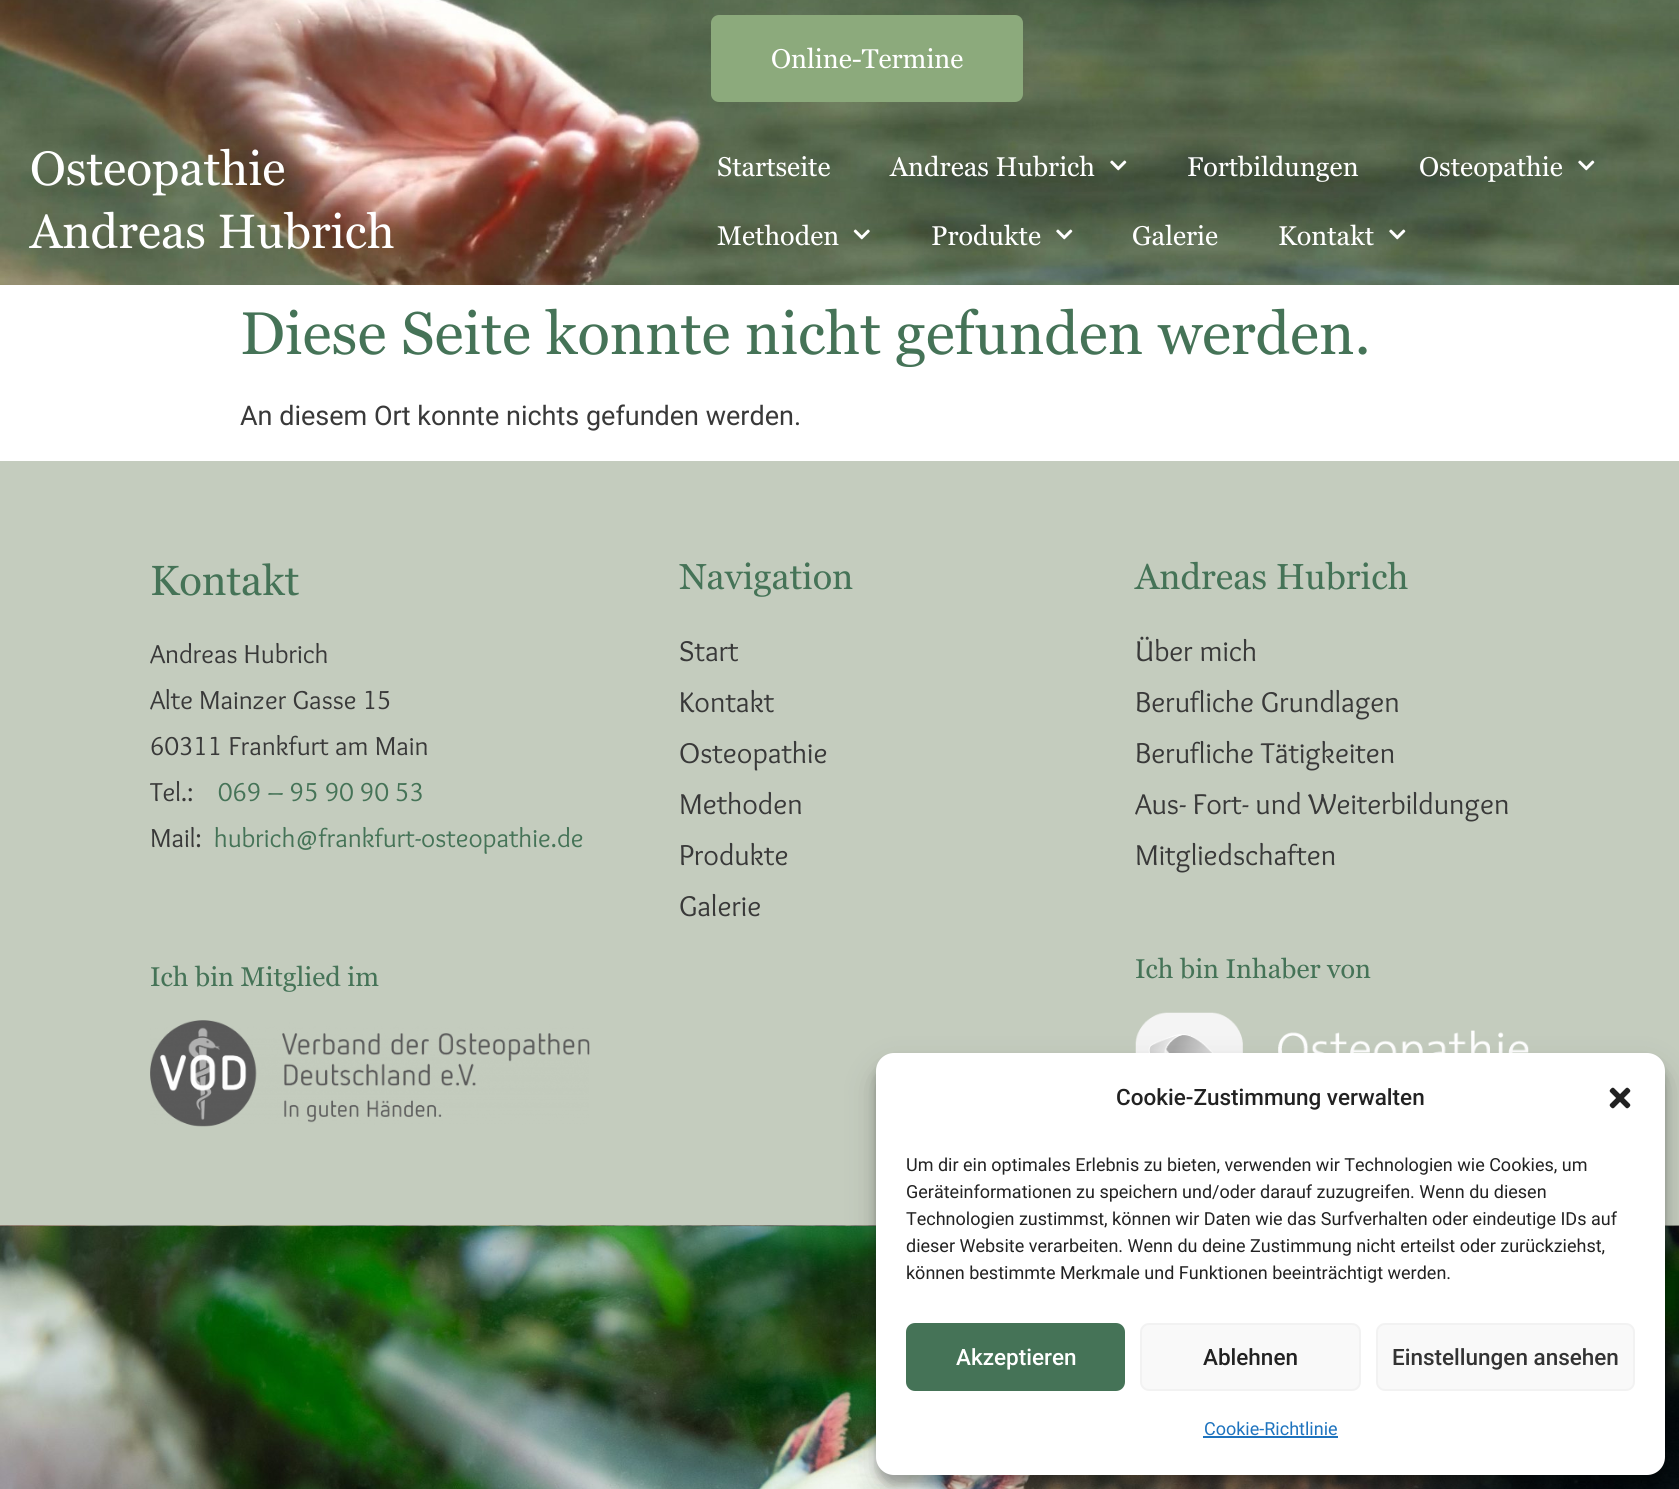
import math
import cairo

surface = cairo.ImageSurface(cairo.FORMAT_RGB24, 1679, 1489)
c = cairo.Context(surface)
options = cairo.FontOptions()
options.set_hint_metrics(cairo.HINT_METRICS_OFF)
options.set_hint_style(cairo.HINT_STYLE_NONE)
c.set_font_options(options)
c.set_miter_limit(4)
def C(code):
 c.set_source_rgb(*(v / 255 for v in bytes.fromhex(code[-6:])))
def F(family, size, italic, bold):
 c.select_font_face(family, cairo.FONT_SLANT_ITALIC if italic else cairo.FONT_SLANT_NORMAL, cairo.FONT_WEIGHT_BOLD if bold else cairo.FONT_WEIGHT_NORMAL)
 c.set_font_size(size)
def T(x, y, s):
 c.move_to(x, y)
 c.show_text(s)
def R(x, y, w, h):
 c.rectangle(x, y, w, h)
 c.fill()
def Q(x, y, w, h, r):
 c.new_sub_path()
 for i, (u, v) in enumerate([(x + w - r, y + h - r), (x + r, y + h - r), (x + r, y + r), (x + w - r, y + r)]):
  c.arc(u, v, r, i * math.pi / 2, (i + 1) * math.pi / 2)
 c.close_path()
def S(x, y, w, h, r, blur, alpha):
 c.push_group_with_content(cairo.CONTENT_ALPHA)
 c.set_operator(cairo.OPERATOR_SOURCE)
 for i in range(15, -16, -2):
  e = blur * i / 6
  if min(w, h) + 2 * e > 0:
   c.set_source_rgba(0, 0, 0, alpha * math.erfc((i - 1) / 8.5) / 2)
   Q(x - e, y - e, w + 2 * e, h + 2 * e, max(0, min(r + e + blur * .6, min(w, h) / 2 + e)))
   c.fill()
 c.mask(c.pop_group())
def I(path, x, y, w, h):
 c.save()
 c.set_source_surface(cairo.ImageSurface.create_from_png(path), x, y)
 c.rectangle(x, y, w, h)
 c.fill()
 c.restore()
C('ffffff')
c.paint()
I('1.png',0,0,1679,285)
F('Georgia',48,0,0)
C('ffffff')
T(30,185,'Osteopathie')
T(30,248,'Andreas Hubrich')
C('8caa7c')
Q(711,15,312,87,8)
c.fill()
F('Georgia',27,0,0)
C('ffffff')
T(771,68,'Online-Termine')
T(717,176,'Startseite')
T(890,176,'Andreas Hubrich')
I('2.png',1110,160,17,11)
T(1187,176,'Fortbildungen')
T(1419,176,'Osteopathie')
I('3.png',1578,160,17,11)
T(717,245,'Methoden')
I('4.png',853,229,17,11)
T(931,245,'Produkte')
I('5.png',1056,229,17,11)
T(1132,245,'Galerie')
T(1278,245,'Kontakt')
I('6.png',1389,229,17,11)
F('Georgia',60,0,0)
C('457357')
T(240,354,'Diese Seite konnte nicht gefunden werden.')
F('Roboto',27,0,0)
C('393939')
T(240,425,'An diesem Ort konnte nichts gefunden werden.')
C('c4ccbe')
R(0,461,1679,765)
F('Georgia',42,0,0)
C('457357')
T(150,595,'Kontakt')
F('Overlock',27,0,0)
C('393939')
T(150,663,'Andreas Hubrich')
T(150,709,'Alte Mainzer Gasse 15')
T(150,755,'60311 Frankfurt am Main')
T(150,801,'Tel.:')
C('457357')
T(218,801,'069 – 95 90 90 53')
C('393939')
T(150,847,'Mail:')
C('457357')
T(214,847,'hubrich@frankfurt-osteopathie.de')
F('Georgia',27,0,0)
T(150,986,'Ich bin Mitglied im')
I('7.png',150,1020,440,107)
F('Georgia',36,0,0)
T(679,589,'Navigation')
F('Overlock',29.75,0,0)
C('393939')
T(679,661,'Start')
T(679,712,'Kontakt')
T(679,763,'Osteopathie')
T(679,814,'Methoden')
T(679,865,'Produkte')
T(679,916,'Galerie')
F('Georgia',36,0,0)
C('457357')
T(1135,589,'Andreas Hubrich')
F('Overlock',29.75,0,0)
C('393939')
T(1135,661,'Über mich')
T(1135,712,'Berufliche Grundlagen')
T(1135,763,'Berufliche Tätigkeiten')
T(1135,814,'Aus- Fort- und Weiterbildungen')
T(1135,865,'Mitgliedschaften')
F('Georgia',27,0,0)
C('457357')
T(1135,978,'Ich bin Inhaber von')
I('8.png',1135,1012,394,41)
I('9.png',0,1225,1679,264)
C('000000')
S(876,1062,789,422,18,4.5,.23)
S(876,1068,789,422,18,15,.19)
C('ffffff')
Q(876,1053,789,422,18)
c.fill()
F('Roboto Medium',22.5,0,0)
C('222222')
T(1116,1105,'Cookie-Zustimmung verwalten')
I('10.png',1609,1087,22,22)
F('Roboto',18,0,0)
T(906,1171,'Um dir ein optimales Erlebnis zu bieten, verwenden wir Technologien wie Cookies, um')
T(906,1198,'Geräteinformationen zu speichern und/oder darauf zuzugreifen. Wenn du diesen')
T(906,1225,'Technologien zustimmst, können wir Daten wie das Surfverhalten oder eindeutige IDs auf')
T(906,1252,'dieser Website verarbeiten. Wenn du deine Zustimmung nicht erteilst oder zurückziehst,')
T(906,1279,'können bestimmte Merkmale und Funktionen beeinträchtigt werden.')
C('457357')
Q(907,1324,217,66,8)
c.fill_preserve()
c.stroke()
F('Roboto Medium',22.5,0,0)
C('ffffff')
T(956,1365,'Akzeptieren')
C('f9f9f9')
Q(1141,1324,219,66,8)
c.fill_preserve()
C('f2f2f2')
c.stroke()
C('222222')
T(1203,1365,'Ablehnen')
C('f9f9f9')
Q(1377,1324,257,66,8)
c.fill_preserve()
C('f2f2f2')
c.stroke()
C('333333')
T(1392,1365,'Einstellungen ansehen')
F('Roboto',18,0,0)
C('1e73be')
T(1204,1435,'Cookie-Richtlinie')
R(1203,1436,135,2)
surface.write_to_png('o.png')
